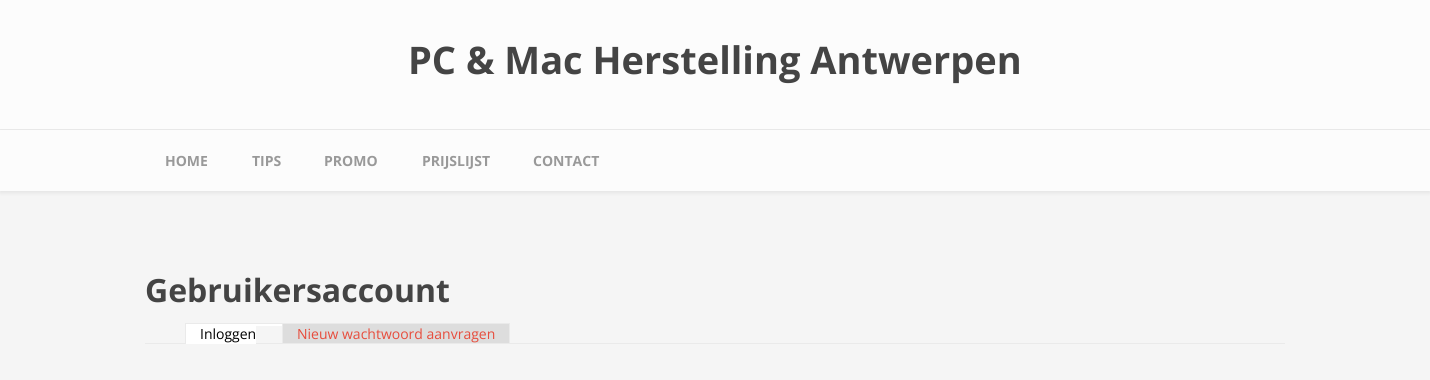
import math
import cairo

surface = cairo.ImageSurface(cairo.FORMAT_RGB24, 1430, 380)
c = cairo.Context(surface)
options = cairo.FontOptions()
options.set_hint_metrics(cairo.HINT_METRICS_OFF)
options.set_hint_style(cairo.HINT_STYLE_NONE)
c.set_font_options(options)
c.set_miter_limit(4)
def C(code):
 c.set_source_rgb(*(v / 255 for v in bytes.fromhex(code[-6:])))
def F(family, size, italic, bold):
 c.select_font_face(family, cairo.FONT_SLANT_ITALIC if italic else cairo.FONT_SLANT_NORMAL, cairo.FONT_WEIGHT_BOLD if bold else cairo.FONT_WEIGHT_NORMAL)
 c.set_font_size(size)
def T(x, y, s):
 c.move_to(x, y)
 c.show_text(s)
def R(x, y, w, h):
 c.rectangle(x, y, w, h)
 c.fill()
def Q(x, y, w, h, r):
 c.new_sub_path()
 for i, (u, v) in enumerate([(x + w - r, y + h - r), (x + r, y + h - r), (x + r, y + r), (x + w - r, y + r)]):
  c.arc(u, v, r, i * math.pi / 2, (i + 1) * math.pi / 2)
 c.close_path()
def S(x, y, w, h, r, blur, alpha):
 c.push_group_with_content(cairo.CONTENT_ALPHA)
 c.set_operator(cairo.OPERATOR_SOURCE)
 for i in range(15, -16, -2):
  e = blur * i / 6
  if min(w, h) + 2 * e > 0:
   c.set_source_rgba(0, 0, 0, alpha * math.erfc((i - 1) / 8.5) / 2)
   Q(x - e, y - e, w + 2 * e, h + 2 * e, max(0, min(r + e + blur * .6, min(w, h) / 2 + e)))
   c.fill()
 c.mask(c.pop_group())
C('f5f5f5')
c.paint()
C('fcfcfc')
R(0,0,1430,129)
C('eaeaea')
R(0,129,1430,1)
F('Open Sans',38,0,1)
C('444444')
T(408,74,'PC & Mac Herstelling Antwerpen')
C('000000')
S(0,132,1430,61,0,2,.07)
C('fcfcfc')
R(0,130,1430,61)
F('Open Sans',14,0,1)
C('999999')
T(165,166,'HOME')
T(252,166,'TIPS')
T(324,166,'PROMO')
T(422,166,'PRIJSLIJST')
T(533,166,'CONTACT')
F('Open Sans',32,0,1)
C('444444')
T(145,302,'Gebruikersaccount')
C('eaeaea')
R(145,343,1140,1)
C('ffffff')
R(186,324,70,20)
F('Open Sans',14,0,0)
C('000000')
T(200,339,'Inloggen')
C('eaeaea')
R(185,323,325,1)
R(185,323,1,21)
C('ffffff')
R(256,324,26,2)
C('dddddd')
R(283,324,226,19)
C('e74c3c')
T(297,339,'Nieuw wachtwoord aanvragen')
C('eaeaea')
R(509,323,1,20)
R(282,323,1,20)
surface.write_to_png('o.png')
